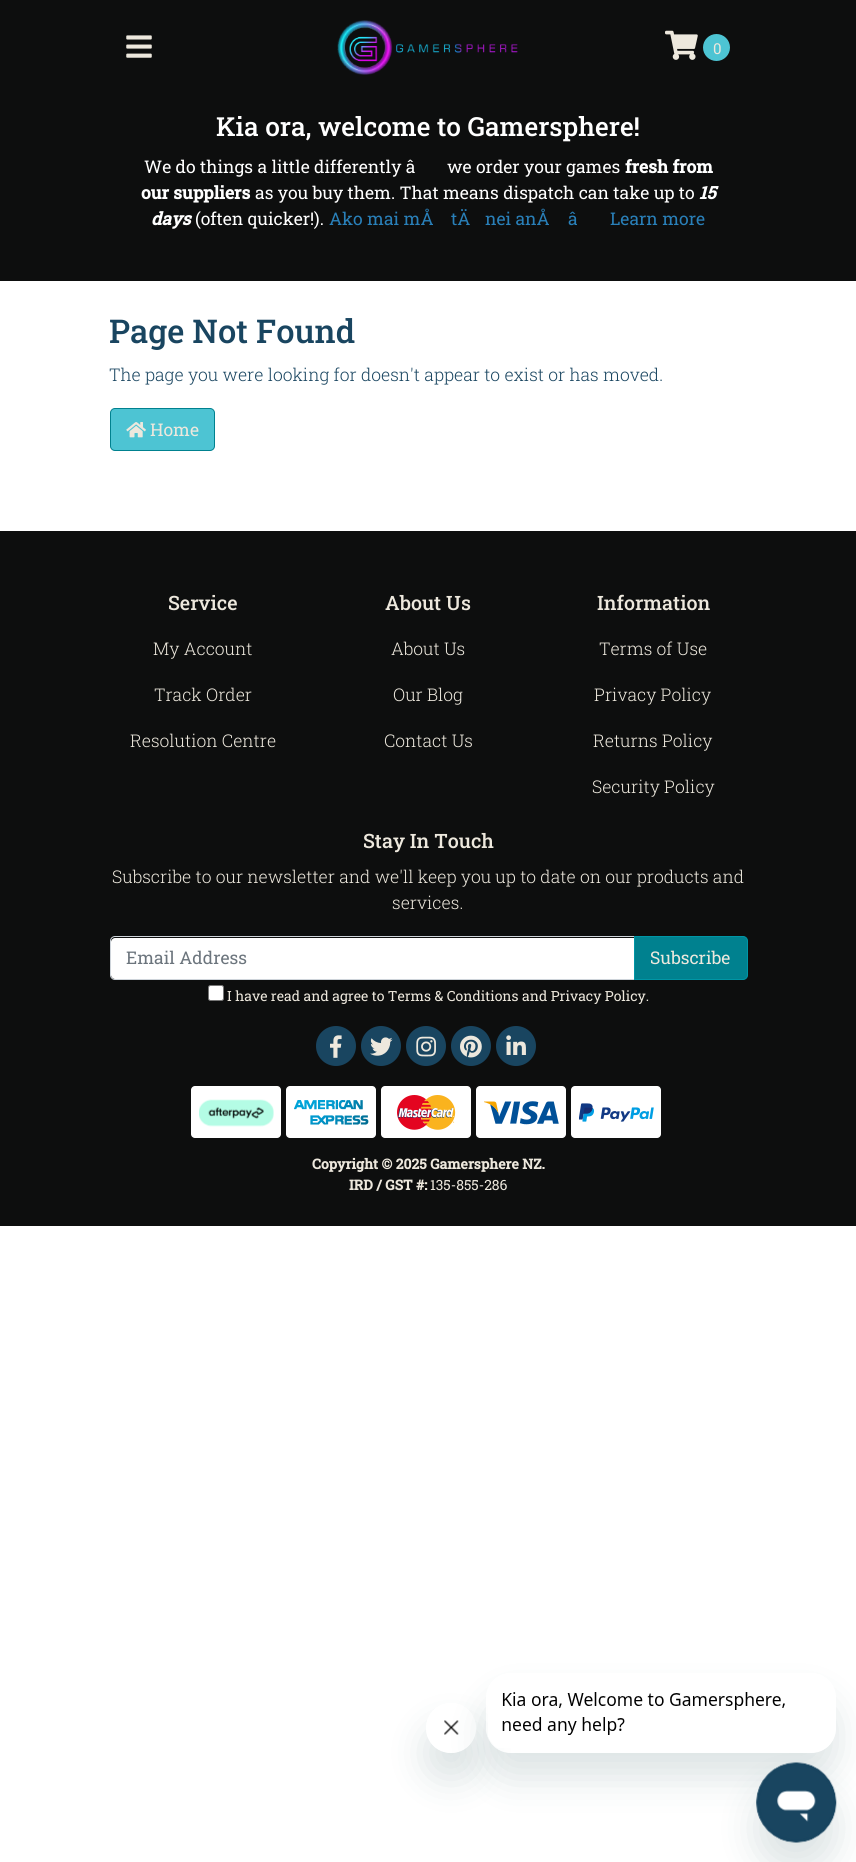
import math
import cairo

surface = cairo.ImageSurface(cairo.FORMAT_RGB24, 856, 1862)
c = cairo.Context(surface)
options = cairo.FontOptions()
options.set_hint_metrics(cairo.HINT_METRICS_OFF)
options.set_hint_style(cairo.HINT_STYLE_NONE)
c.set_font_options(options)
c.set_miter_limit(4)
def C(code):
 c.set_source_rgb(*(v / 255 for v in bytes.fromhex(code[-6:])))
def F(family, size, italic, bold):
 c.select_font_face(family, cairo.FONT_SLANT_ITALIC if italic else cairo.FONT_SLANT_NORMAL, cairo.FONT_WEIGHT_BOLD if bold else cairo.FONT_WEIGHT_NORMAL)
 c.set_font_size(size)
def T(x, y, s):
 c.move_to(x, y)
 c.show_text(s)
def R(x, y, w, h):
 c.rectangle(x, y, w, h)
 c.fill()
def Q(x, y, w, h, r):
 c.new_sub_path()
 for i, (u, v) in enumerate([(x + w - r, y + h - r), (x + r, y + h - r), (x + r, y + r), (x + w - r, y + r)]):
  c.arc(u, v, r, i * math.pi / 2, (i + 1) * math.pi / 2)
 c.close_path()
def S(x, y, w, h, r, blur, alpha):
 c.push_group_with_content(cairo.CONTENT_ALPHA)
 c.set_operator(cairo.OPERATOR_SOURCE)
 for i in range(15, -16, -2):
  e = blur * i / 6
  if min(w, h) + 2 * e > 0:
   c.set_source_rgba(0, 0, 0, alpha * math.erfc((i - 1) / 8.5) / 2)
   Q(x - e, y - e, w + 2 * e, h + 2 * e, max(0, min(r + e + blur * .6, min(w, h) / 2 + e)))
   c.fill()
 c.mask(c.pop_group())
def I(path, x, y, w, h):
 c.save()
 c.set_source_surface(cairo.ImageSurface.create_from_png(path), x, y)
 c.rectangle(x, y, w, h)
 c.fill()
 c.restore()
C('ffffff')
c.paint()
C('0d0e0e')
R(0,0,856,281)
I('1.png',126,35,26,23)
I('2.png',337,20,181,55)
I('3.png',665,30,33,30)
C('4dc4d3')
c.arc(716.5,47.5,13.5,0,2 * math.pi)
c.fill()
F('Roboto Slab',15,0,0)
C('ede8dd')
T(713,54,'0')
F('Roboto Slab Medium',26.25,0,0)
C('ffffff')
T(216,136,'Kia ora, welcome to Gamersphere!')
F('Roboto Slab',17.5,0,0)
T(144,173,'We do things a little differently â')
T(447,173,'we order your games')
F('Roboto Slab',17.5,0,1)
T(625,173,'fresh from')
T(141,199,'our suppliers')
F('Roboto Slab',17.5,0,0)
T(255,199,'as you buy them. That means dispatch can take up to')
F('Roboto Slab',17.5,1,1)
T(699,199,'15')
T(151,225,'days')
F('Roboto Slab',17.5,0,0)
T(195,225,'(often quicker!).')
C('2980b9')
T(329,225,'Ako mai mÅ')
T(451,225,'tÄ')
T(485,225,'nei anÅ')
T(568,225,'â')
T(610,225,'Learn more')
F('Roboto Slab Medium',32.75,0,0)
C('194560')
T(109,343,'Page Not Found')
F('Roboto Slab Light',17.5,0,0)
T(109,381,'The page you were looking for doesn\'t appear to exist or has moved.')
C('4dc4d3')
Q(110.5,408.5,104,42,4.5)
c.fill_preserve()
C('00818f')
c.set_line_width(1)
c.stroke()
I('4.png',126,422,20,16)
F('Roboto Slab',17.5,0,0)
C('ede8dd')
T(150,436,'Home')
C('0d0e0e')
R(0,531,856,695)
F('Roboto Slab Medium',19.75,0,0)
C('ede8dd')
T(168,610,'Service')
F('Roboto Slab Light',17.5,0,0)
T(153,655,'My Account')
T(154,701,'Track Order')
T(130,747,'Resolution Centre')
F('Roboto Slab Medium',19.75,0,0)
T(385,610,'About Us')
F('Roboto Slab Light',17.5,0,0)
T(391,655,'About Us')
T(393,701,'Our Blog')
T(384,747,'Contact Us')
F('Roboto Slab Medium',19.75,0,0)
T(597,610,'Information')
F('Roboto Slab Light',17.5,0,0)
T(599,655,'Terms of Use')
T(594,701,'Privacy Policy')
T(593,747,'Returns Policy')
T(592,793,'Security Policy')
F('Roboto Slab Medium',19.75,0,0)
T(363,848,'Stay In Touch')
F('Roboto Slab Light',17.5,0,0)
T(112,883,'Subscribe to our newsletter and we\'ll keep you up to date on our products and')
T(392,909,'services.')
C('ffffff')
c.new_path()
c.move_to(115,938)
c.line_to(634,938)
c.line_to(634,979)
c.line_to(115,979)
c.curve_to(113,979,111,977,111,975)
c.line_to(111,942)
c.curve_to(111,940,113,938,115,938)
c.close_path()
c.fill()
c.new_path()
c.move_to(115,936.5)
c.line_to(634.5,936.5)
c.line_to(634.5,979.5)
c.line_to(115,979.5)
c.curve_to(112.5,979.5,110.5,977.5,110.5,975)
c.line_to(110.5,941)
c.curve_to(110.5,938.5,112.5,936.5,115,936.5)
c.close_path()
C('ced4da')
c.stroke()
F('Roboto Slab',17.5,0,0)
C('6c757d')
T(126,964,'Email Address')
C('00818f')
c.new_path()
c.move_to(634.5,936.5)
c.line_to(743,936.5)
c.curve_to(745.5,936.5,747.5,938.5,747.5,941)
c.line_to(747.5,975)
c.curve_to(747.5,977.5,745.5,979.5,743,979.5)
c.line_to(634.5,979.5)
c.close_path()
c.fill_preserve()
C('0096a6')
c.stroke()
C('ede8dd')
T(650,964,'Subscribe')
C('ffffff')
Q(208.5,985.5,15,15,2)
c.fill_preserve()
C('767676')
c.stroke()
F('Roboto Slab',14,0,0)
C('ede8dd')
T(227,1001,'I have read and agree to Terms & Conditions and Privacy Policy.')
C('194560')
c.new_path()
c.arc(336,1046,20,0,2 * math.pi)
c.fill()
I('5.png',330,1035,12,23)
c.arc(381,1046,20,0,2 * math.pi)
c.fill()
I('6.png',370,1037,23,19)
c.arc(426,1046,20,0,2 * math.pi)
c.fill()
I('7.png',416,1036,20,21)
c.arc(471,1046,20,0,2 * math.pi)
c.fill()
I('8.png',460,1035,22,23)
c.arc(516,1046,20,0,2 * math.pi)
c.fill()
I('9.png',506,1035,20,20)
C('ffffff')
Q(191,1086,90,52,4)
c.fill()
I('10.png',199,1099,75,28)
Q(286,1086,90,52,4)
c.fill()
I('11.png',294,1100,75,25)
Q(381,1086,90,52,4)
c.fill()
I('12.png',397,1095,59,35)
Q(476,1086,90,52,4)
c.fill()
I('13.png',484,1101,75,24)
Q(571,1086,90,52,4)
c.fill()
I('14.png',579,1103,75,19)
F('Roboto Slab',14,0,1)
C('ede8dd')
T(312,1169,'Copyright © 2025 Gamersphere NZ.')
T(349,1190,'IRD / GST #:')
F('Roboto Slab',14,0,0)
T(430,1190,'135-855-286')
c.save()
c.set_fill_rule(cairo.FILL_RULE_EVEN_ODD)
c.new_path()
c.move_to(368,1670)
c.line_to(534,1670)
c.line_to(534,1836)
c.line_to(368,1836)
c.close_path()
c.move_to(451,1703)
c.curve_to(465,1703,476,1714,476,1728)
c.curve_to(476,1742,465,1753,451,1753)
c.curve_to(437,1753,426,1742,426,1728)
c.curve_to(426,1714,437,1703,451,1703)
c.close_path()
c.clip()
C('17494d')
S(426,1728,50,50,25,19,.15)
c.restore()
I('16.png',437,1720,22,33)
c.save()
c.set_fill_rule(cairo.FILL_RULE_EVEN_ODD)
c.new_path()
c.move_to(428,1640)
c.line_to(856,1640)
c.line_to(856,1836)
c.line_to(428,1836)
c.close_path()
c.move_to(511,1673)
c.line_to(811,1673)
c.curve_to(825,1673,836,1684,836,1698)
c.line_to(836,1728)
c.curve_to(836,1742,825,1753,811,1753)
c.line_to(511,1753)
c.curve_to(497,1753,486,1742,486,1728)
c.line_to(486,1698)
c.curve_to(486,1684,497,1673,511,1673)
c.close_path()
c.clip()
C('17494d')
S(486,1698,350,80,25,19,.15)
c.restore()
I('15.png',488,1692,341,56)
C('17494d')
S(756,1788,80,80,40,19,.15)
I('17.png',756,1762,81,81)
surface.write_to_png('o.png')
